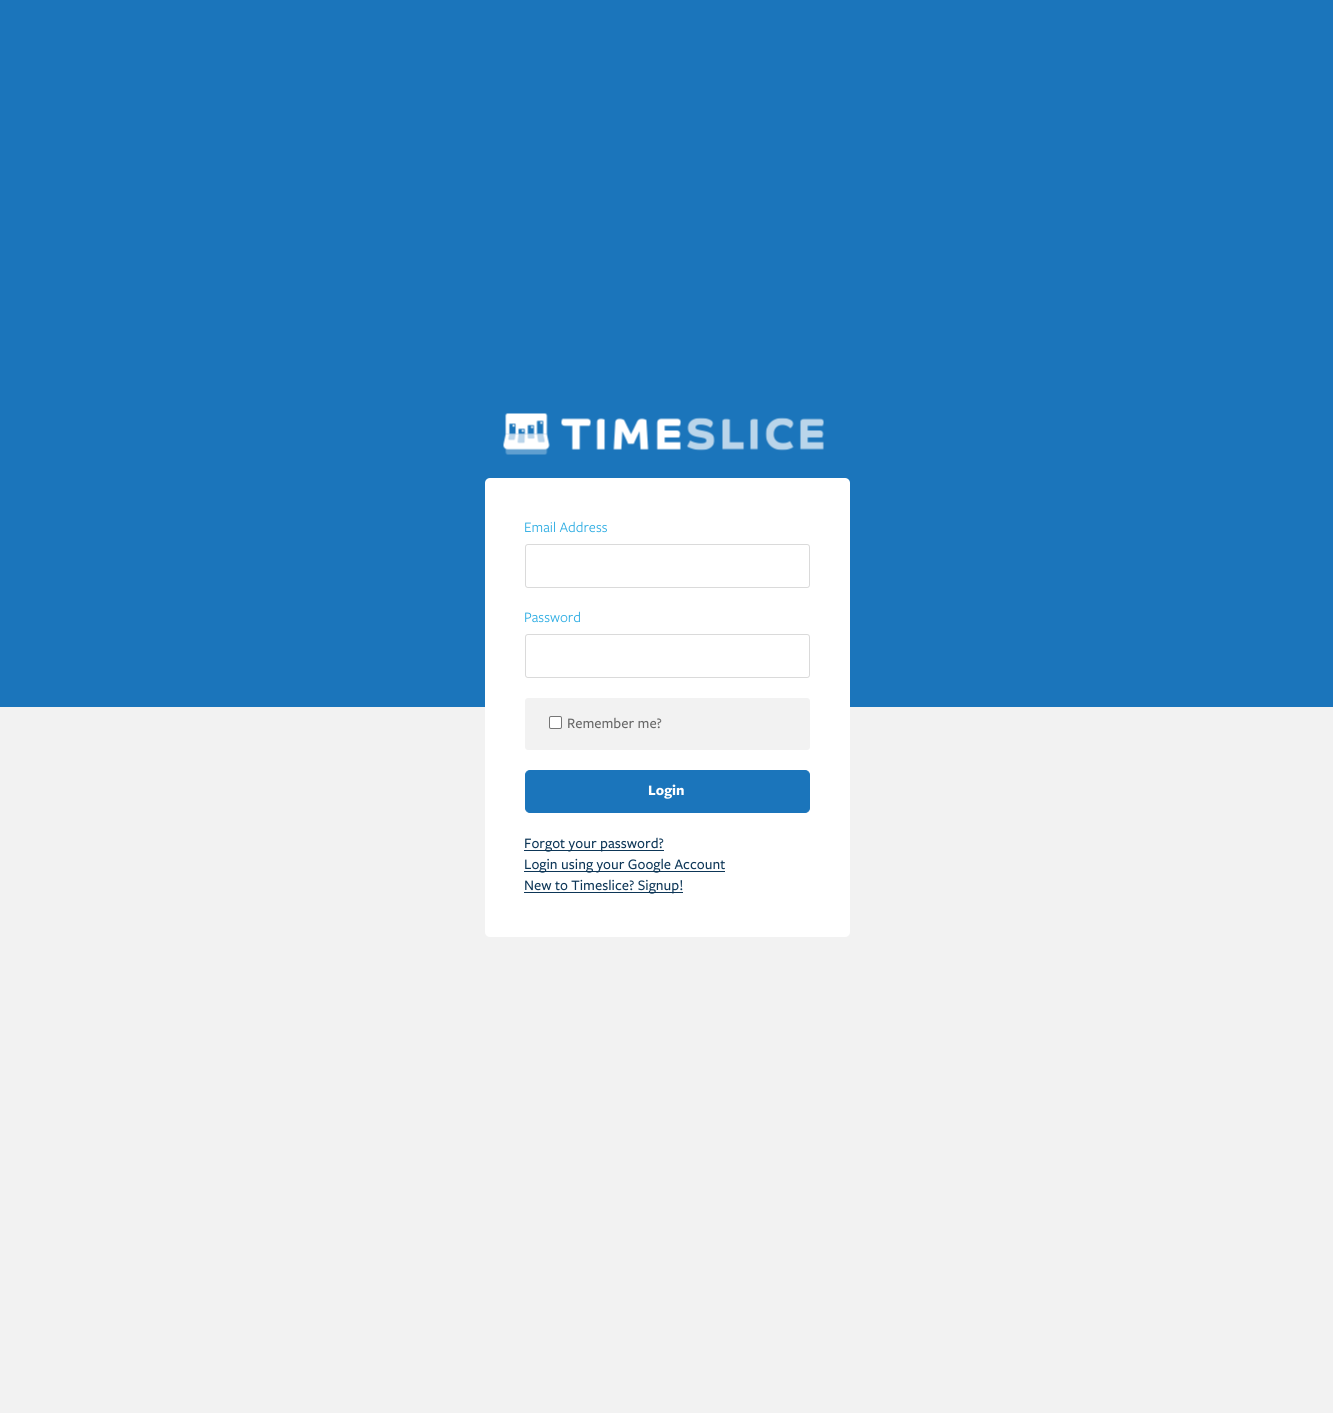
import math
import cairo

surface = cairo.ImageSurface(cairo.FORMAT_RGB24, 1333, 1413)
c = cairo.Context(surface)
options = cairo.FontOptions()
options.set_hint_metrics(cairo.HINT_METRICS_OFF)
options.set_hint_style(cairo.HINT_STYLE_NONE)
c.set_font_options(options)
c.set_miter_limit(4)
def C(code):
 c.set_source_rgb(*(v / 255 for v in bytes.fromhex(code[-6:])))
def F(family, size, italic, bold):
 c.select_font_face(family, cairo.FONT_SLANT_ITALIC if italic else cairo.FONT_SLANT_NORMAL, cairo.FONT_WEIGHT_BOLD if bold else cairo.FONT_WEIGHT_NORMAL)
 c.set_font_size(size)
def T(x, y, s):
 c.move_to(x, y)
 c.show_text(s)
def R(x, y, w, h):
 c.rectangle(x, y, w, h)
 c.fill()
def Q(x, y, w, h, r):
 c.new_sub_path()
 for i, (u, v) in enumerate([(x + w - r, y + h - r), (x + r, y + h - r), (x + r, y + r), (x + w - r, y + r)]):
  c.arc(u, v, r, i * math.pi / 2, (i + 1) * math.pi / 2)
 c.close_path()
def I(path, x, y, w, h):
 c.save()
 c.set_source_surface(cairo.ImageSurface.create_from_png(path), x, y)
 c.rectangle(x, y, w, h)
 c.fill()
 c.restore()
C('f2f2f2')
c.paint()
C('1b75bb')
R(0,0,1333,707)
C('ffffff')
Q(485,478,365,459,5)
c.fill()
I('1.png',503,413,321,42)
F('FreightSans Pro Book',15,0,0)
C('29abe2')
T(524,532,'Email Address')
Q(525.5,544.5,284,43,2.5)
C('dadada')
c.set_line_width(1)
c.stroke()
C('29abe2')
T(524,622,'Password')
Q(525.5,634.5,284,43,2.5)
C('dadada')
c.stroke()
C('f2f2f2')
Q(525,698,285,52,3)
c.fill()
C('ffffff')
Q(549.5,716.5,12,12,1.5)
c.fill_preserve()
C('767676')
c.stroke()
F('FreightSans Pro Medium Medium',15,0,0)
C('666666')
T(567,728,'Remember me?')
C('1b75bb')
Q(525.5,770.5,284,42,4.5)
c.fill_preserve()
c.stroke()
F('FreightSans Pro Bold',15,0,1)
C('ffffff')
T(648,795,'Login')
C('0d3657')
R(524,850,140,1)
F('FreightSans Pro Medium Medium',15,0,0)
T(524,848,'Forgot your password?')
R(524,871,201,1)
T(524,869,'Login using your Google Account')
R(524,892,159,1)
T(524,890,'New to Timeslice? Signup!')
surface.write_to_png('o.png')
